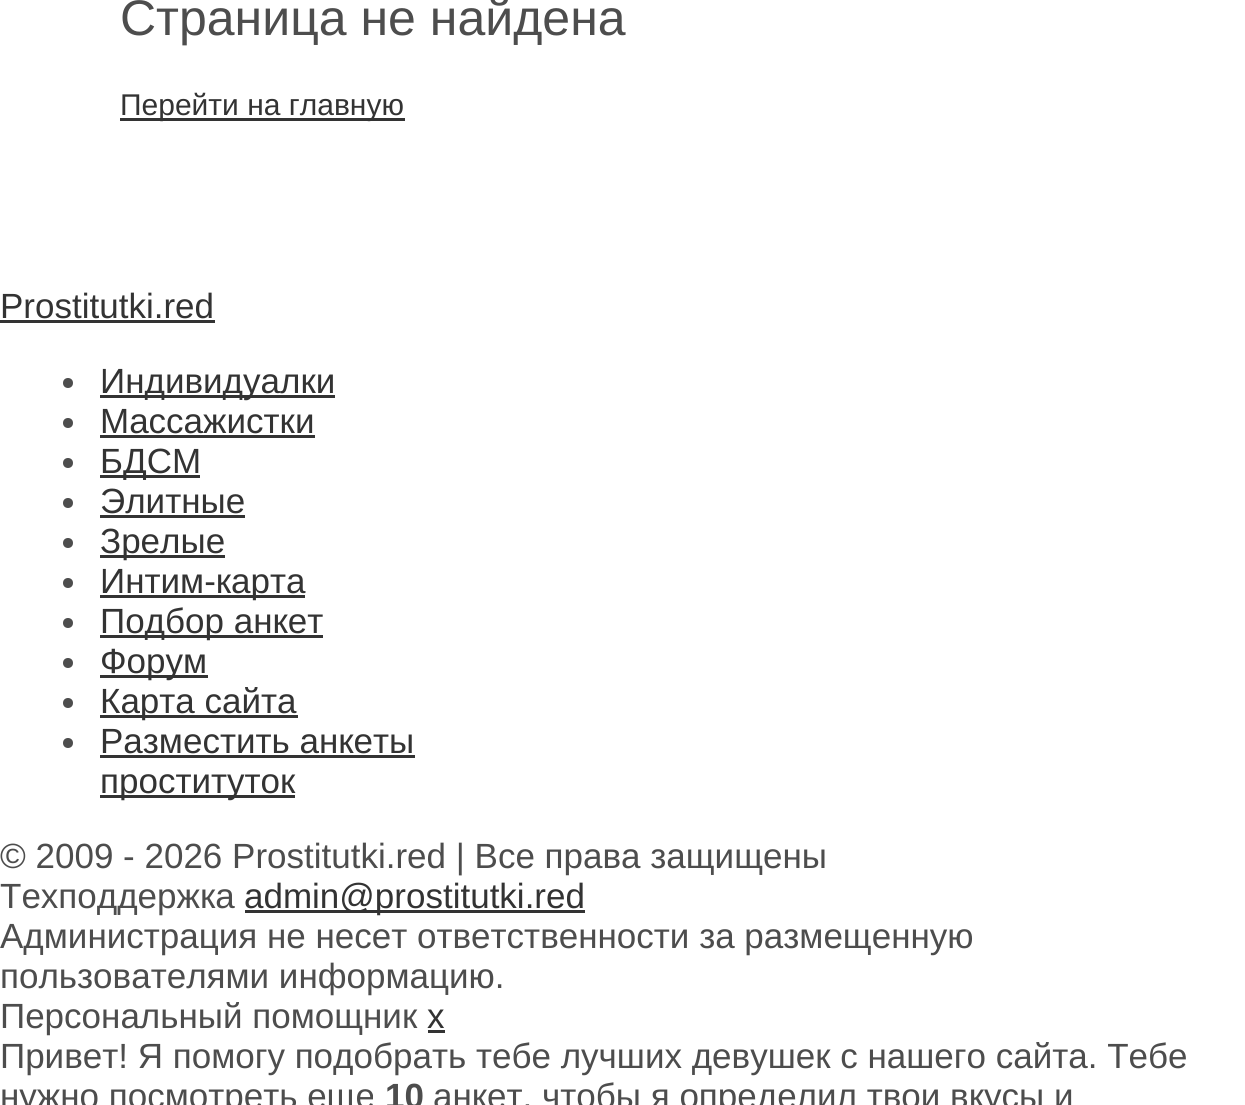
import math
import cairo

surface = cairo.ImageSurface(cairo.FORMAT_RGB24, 1245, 1105)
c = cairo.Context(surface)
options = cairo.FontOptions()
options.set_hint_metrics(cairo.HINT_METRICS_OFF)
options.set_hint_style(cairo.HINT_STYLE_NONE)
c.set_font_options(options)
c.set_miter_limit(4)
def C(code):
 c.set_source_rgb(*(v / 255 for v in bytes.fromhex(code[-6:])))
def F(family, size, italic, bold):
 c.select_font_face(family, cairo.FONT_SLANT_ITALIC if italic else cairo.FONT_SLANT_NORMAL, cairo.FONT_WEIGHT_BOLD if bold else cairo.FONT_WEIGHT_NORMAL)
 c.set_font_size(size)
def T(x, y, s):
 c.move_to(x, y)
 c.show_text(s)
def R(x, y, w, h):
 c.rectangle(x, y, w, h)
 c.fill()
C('ffffff')
c.paint()
F('Liberation Sans',50,0,0)
C('4d4d4d')
T(120,35,'Страница не найдена')
C('333333')
R(120,118,285,3)
F('Liberation Sans',30,0,0)
T(120,115,'Перейти на главную')
F('Liberation Sans',35,0,0)
T(0,318,'Prostitutki.red')
R(0,320,215,3)
C('4d4d4d')
c.new_path()
c.arc(68,383,5,0,2 * math.pi)
c.fill()
C('333333')
R(100,395,235,3)
T(100,393,'Индивидуалки')
C('4d4d4d')
c.new_path()
c.arc(68,423,5,0,2 * math.pi)
c.fill()
C('333333')
T(100,433,'Массажистки')
R(100,435,215,3)
C('4d4d4d')
c.new_path()
c.arc(68,463,5,0,2 * math.pi)
c.fill()
C('333333')
R(100,475,100,3)
T(100,473,'БДСМ')
C('4d4d4d')
c.new_path()
c.arc(68,503,5,0,2 * math.pi)
c.fill()
C('333333')
T(100,513,'Элитные')
R(100,515,145,3)
C('4d4d4d')
c.new_path()
c.arc(68,543,5,0,2 * math.pi)
c.fill()
C('333333')
R(100,555,125,3)
T(100,553,'Зрелые')
C('4d4d4d')
c.new_path()
c.arc(68,583,5,0,2 * math.pi)
c.fill()
C('333333')
R(100,595,205,3)
T(100,593,'Интим-карта')
C('4d4d4d')
c.new_path()
c.arc(68,623,5,0,2 * math.pi)
c.fill()
C('333333')
R(100,635,223,3)
T(100,633,'Подбор анкет')
C('4d4d4d')
c.new_path()
c.arc(68,663,5,0,2 * math.pi)
c.fill()
C('333333')
R(100,675,108,3)
T(100,673,'Форум')
C('4d4d4d')
c.new_path()
c.arc(68,703,5,0,2 * math.pi)
c.fill()
C('333333')
R(100,715,198,3)
T(100,713,'Карта сайта')
C('4d4d4d')
c.new_path()
c.arc(68,743,5,0,2 * math.pi)
c.fill()
C('333333')
T(100,753,'Разместить анкеты')
R(100,755,315,3)
R(100,795,195,3)
T(100,793,'проституток')
C('4d4d4d')
T(0,868,'© 2009 - 2026 Prostitutki.red | Все права защищены')
T(0,908,'Техподдержка')
C('333333')
R(245,910,340,3)
T(244,908,'admin@prostitutki.red')
C('4d4d4d')
T(0,948,'Администрация не несет ответственности за размещенную')
T(0,988,'пользователями информацию.')
T(0,1028,'Персональный помощник')
C('333333')
T(427,1028,'x')
R(428,1030,17,3)
C('4d4d4d')
T(0,1068,'Привет! Я помогу подобрать тебе лучших девушек с нашего сайта. Тебе')
T(0,1108,'нужно посмотреть еще')
F('Liberation Sans',35,0,1)
T(385,1108,'10')
F('Liberation Sans',35,0,0)
T(433,1108,'анкет, чтобы я определил твои вкусы и')
surface.write_to_png('o.png')
